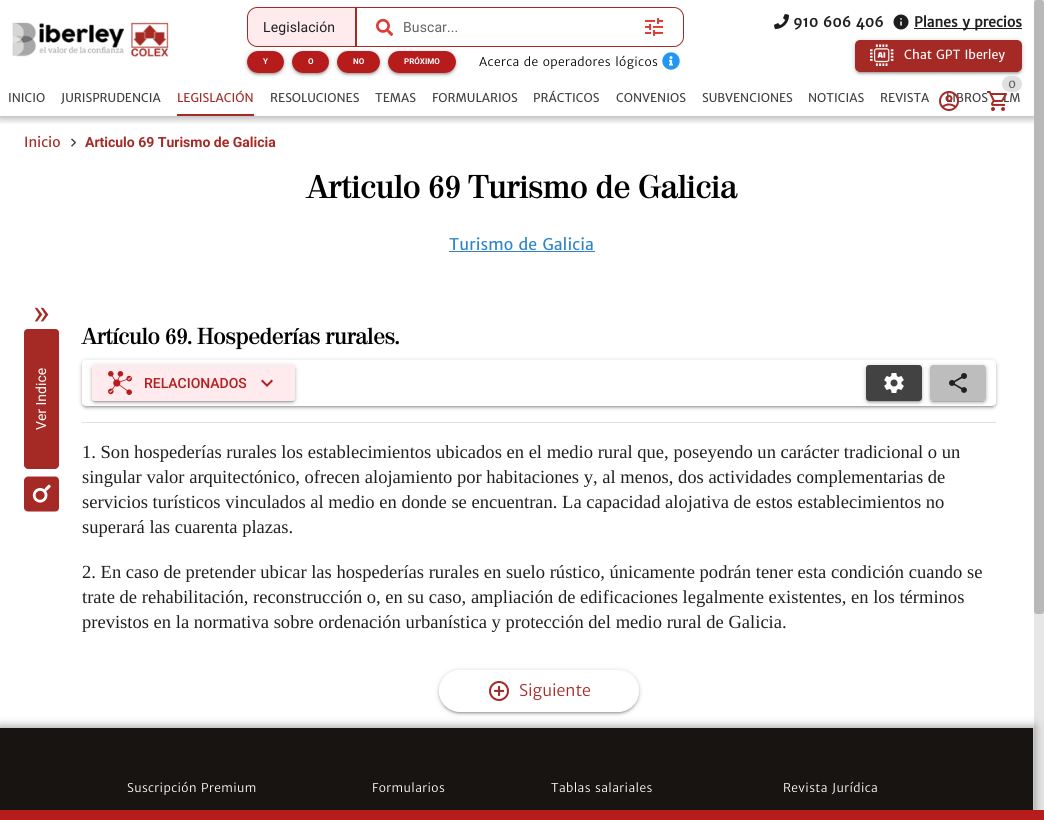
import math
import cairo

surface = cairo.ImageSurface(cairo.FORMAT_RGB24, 1044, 820)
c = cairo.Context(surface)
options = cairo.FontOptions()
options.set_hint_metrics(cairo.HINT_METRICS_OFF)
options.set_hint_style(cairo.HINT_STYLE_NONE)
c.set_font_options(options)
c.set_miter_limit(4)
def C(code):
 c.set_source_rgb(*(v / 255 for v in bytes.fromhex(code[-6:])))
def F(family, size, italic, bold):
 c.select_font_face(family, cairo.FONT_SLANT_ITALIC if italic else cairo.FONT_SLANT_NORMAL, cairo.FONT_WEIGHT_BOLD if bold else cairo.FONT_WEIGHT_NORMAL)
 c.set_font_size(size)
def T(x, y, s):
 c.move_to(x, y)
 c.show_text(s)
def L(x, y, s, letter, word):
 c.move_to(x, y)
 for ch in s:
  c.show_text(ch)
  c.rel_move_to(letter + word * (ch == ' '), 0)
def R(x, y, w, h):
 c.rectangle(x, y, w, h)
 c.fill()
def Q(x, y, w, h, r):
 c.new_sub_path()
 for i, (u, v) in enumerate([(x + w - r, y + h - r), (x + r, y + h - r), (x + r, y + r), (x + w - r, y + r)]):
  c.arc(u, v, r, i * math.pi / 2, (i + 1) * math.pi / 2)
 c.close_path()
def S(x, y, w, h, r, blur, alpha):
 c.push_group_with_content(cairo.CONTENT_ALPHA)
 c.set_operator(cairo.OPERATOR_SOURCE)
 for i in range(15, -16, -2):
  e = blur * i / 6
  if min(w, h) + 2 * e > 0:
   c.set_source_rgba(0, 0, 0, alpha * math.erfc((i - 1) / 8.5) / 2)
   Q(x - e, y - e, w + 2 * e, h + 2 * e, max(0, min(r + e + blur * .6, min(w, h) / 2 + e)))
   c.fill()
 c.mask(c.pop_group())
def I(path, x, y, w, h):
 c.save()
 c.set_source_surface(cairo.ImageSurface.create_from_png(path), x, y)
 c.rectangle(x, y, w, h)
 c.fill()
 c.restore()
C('ffffff')
c.paint()
C('e6e6e6')
R(1034,0,10,810)
I('1.png',12,22,157,35)
C('ffebee')
c.new_path()
c.move_to(257,7.5)
c.line_to(355.5,7.5)
c.line_to(355.5,46.5)
c.line_to(257,46.5)
c.curve_to(252,46.5,247.5,42,247.5,37)
c.line_to(247.5,17)
c.curve_to(247.5,12,252,7.5,257,7.5)
c.close_path()
c.fill_preserve()
C('a52925')
c.set_line_width(1)
c.stroke()
c.new_path()
c.move_to(356.5,7.5)
c.line_to(674,7.5)
c.curve_to(679,7.5,683.5,12,683.5,17)
c.line_to(683.5,37)
c.curve_to(683.5,42,679,46.5,674,46.5)
c.line_to(356.5,46.5)
c.close_path()
c.stroke()
I('2.png',376,18,18,18)
I('3.png',645,17,19,19)
C('b71c1c')
Q(247,51,37,22,11)
c.fill()
c.save()
c.set_fill_rule(cairo.FILL_RULE_EVEN_ODD)
c.new_path()
c.move_to(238,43)
c.line_to(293,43)
c.line_to(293,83)
c.line_to(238,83)
c.close_path()
c.move_to(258,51)
c.line_to(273,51)
c.curve_to(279,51,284,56,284,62)
c.curve_to(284,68,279,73,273,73)
c.line_to(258,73)
c.curve_to(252,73,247,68,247,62)
c.curve_to(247,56,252,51,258,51)
c.close_path()
c.clip()
C('000000')
S(247,52,37,22,11,2.5,.2)
c.restore()
Q(292,51,37,22,11)
c.fill()
c.save()
c.set_fill_rule(cairo.FILL_RULE_EVEN_ODD)
c.new_path()
c.move_to(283,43)
c.line_to(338,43)
c.line_to(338,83)
c.line_to(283,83)
c.close_path()
c.move_to(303,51)
c.line_to(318,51)
c.curve_to(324,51,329,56,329,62)
c.curve_to(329,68,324,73,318,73)
c.line_to(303,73)
c.curve_to(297,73,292,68,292,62)
c.curve_to(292,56,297,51,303,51)
c.close_path()
c.clip()
C('000000')
S(292,52,37,22,11,2.5,.2)
c.restore()
Q(337,51,43,22,11)
c.fill()
c.save()
c.set_fill_rule(cairo.FILL_RULE_EVEN_ODD)
c.new_path()
c.move_to(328,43)
c.line_to(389,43)
c.line_to(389,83)
c.line_to(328,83)
c.close_path()
c.move_to(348,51)
c.line_to(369,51)
c.curve_to(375,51,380,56,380,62)
c.curve_to(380,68,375,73,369,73)
c.line_to(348,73)
c.curve_to(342,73,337,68,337,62)
c.curve_to(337,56,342,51,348,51)
c.close_path()
c.clip()
C('000000')
S(337,52,43,22,11,2.5,.2)
c.restore()
Q(388,51,68,22,11)
c.fill()
I('4.png',662,52,18,18)
I('5.png',774,14,15,15)
I('6.png',893,14,16,16)
C('1d1d1d')
R(914,28,108,1)
C('a52925')
Q(855,40,167,32,5)
c.fill()
c.save()
c.set_fill_rule(cairo.FILL_RULE_EVEN_ODD)
c.new_path()
c.move_to(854,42)
c.line_to(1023,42)
c.line_to(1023,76)
c.line_to(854,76)
c.close_path()
c.move_to(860,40)
c.line_to(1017,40)
c.curve_to(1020,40,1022,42,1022,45)
c.line_to(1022,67)
c.curve_to(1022,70,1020,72,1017,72)
c.line_to(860,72)
c.curve_to(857,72,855,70,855,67)
c.line_to(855,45)
c.curve_to(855,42,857,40,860,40)
c.close_path()
c.clip()
C('000000')
S(857,45,163,28,3,.5,.12)
c.restore()
c.save()
c.set_fill_rule(cairo.FILL_RULE_EVEN_ODD)
c.new_path()
c.move_to(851,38)
c.line_to(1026,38)
c.line_to(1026,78)
c.line_to(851,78)
c.close_path()
c.move_to(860,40)
c.line_to(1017,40)
c.curve_to(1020,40,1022,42,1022,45)
c.line_to(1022,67)
c.curve_to(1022,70,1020,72,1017,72)
c.line_to(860,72)
c.curve_to(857,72,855,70,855,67)
c.line_to(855,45)
c.curve_to(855,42,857,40,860,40)
c.close_path()
c.clip()
C('000000')
S(855,42,167,32,5,1,.14)
c.restore()
c.save()
c.set_fill_rule(cairo.FILL_RULE_EVEN_ODD)
c.new_path()
c.move_to(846,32)
c.line_to(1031,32)
c.line_to(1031,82)
c.line_to(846,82)
c.close_path()
c.move_to(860,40)
c.line_to(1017,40)
c.curve_to(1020,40,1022,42,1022,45)
c.line_to(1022,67)
c.curve_to(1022,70,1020,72,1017,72)
c.line_to(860,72)
c.curve_to(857,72,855,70,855,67)
c.line_to(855,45)
c.curve_to(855,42,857,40,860,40)
c.close_path()
c.clip()
C('000000')
S(855,41,167,32,5,2.5,.2)
c.restore()
I('7.png',870,44,24,22)
F('Merriweather Sans',12,0,0)
C('3f3f3f')
T(1003,102,'LM')
I('8.png',987,91,20,20)
C('e0e0e0')
Q(1002,76,20,16,8)
c.fill()
C('3f3f3f')
T(946,102,'LIBROS')
I('9.png',939,91,20,20)
C('a52925')
R(177,114,77,2)
C('b8b8b8')
Q(1034,0,10,614,3)
c.fill()
c.save()
c.rectangle(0,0,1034,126)
c.clip()
c.rectangle(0,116,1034,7)
c.clip()
C('000000')
S(0,0,1034,116,0,5,.24)
c.restore()
c.save()
c.rectangle(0,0,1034,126)
c.clip()
c.rectangle(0,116,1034,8)
c.clip()
C('000000')
S(-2,-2,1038,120,0,5,.2)
c.restore()
F('Roboto',14,0,0)
C('202020')
L(263,32,'Legislación',.1,0)
C('646464')
L(403,32,'Buscar...',.1,0)
c.save()
c.set_fill_rule(cairo.FILL_RULE_EVEN_ODD)
c.new_path()
c.move_to(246,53)
c.line_to(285,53)
c.line_to(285,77)
c.line_to(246,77)
c.close_path()
c.move_to(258,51)
c.line_to(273,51)
c.curve_to(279,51,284,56,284,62)
c.curve_to(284,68,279,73,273,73)
c.line_to(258,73)
c.curve_to(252,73,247,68,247,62)
c.curve_to(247,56,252,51,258,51)
c.close_path()
c.clip()
C('000000')
S(249,56,33,18,9,.5,.12)
c.restore()
c.save()
c.set_fill_rule(cairo.FILL_RULE_EVEN_ODD)
c.new_path()
c.move_to(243,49)
c.line_to(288,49)
c.line_to(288,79)
c.line_to(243,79)
c.close_path()
c.move_to(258,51)
c.line_to(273,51)
c.curve_to(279,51,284,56,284,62)
c.curve_to(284,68,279,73,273,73)
c.line_to(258,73)
c.curve_to(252,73,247,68,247,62)
c.curve_to(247,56,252,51,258,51)
c.close_path()
c.clip()
C('000000')
S(247,53,37,22,11,1,.14)
c.restore()
F('Roboto',8,0,1)
C('ffffff')
T(263,64,'Y')
c.save()
c.set_fill_rule(cairo.FILL_RULE_EVEN_ODD)
c.new_path()
c.move_to(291,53)
c.line_to(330,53)
c.line_to(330,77)
c.line_to(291,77)
c.close_path()
c.move_to(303,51)
c.line_to(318,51)
c.curve_to(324,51,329,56,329,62)
c.curve_to(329,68,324,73,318,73)
c.line_to(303,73)
c.curve_to(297,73,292,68,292,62)
c.curve_to(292,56,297,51,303,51)
c.close_path()
c.clip()
C('000000')
S(294,56,33,18,9,.5,.12)
c.restore()
c.save()
c.set_fill_rule(cairo.FILL_RULE_EVEN_ODD)
c.new_path()
c.move_to(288,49)
c.line_to(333,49)
c.line_to(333,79)
c.line_to(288,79)
c.close_path()
c.move_to(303,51)
c.line_to(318,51)
c.curve_to(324,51,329,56,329,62)
c.curve_to(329,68,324,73,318,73)
c.line_to(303,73)
c.curve_to(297,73,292,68,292,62)
c.curve_to(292,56,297,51,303,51)
c.close_path()
c.clip()
C('000000')
S(292,53,37,22,11,1,.14)
c.restore()
T(308,64,'O')
c.save()
c.set_fill_rule(cairo.FILL_RULE_EVEN_ODD)
c.new_path()
c.move_to(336,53)
c.line_to(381,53)
c.line_to(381,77)
c.line_to(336,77)
c.close_path()
c.move_to(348,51)
c.line_to(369,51)
c.curve_to(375,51,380,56,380,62)
c.curve_to(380,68,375,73,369,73)
c.line_to(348,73)
c.curve_to(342,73,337,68,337,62)
c.curve_to(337,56,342,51,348,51)
c.close_path()
c.clip()
C('000000')
S(339,56,39,18,9,.5,.12)
c.restore()
c.save()
c.set_fill_rule(cairo.FILL_RULE_EVEN_ODD)
c.new_path()
c.move_to(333,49)
c.line_to(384,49)
c.line_to(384,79)
c.line_to(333,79)
c.close_path()
c.move_to(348,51)
c.line_to(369,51)
c.curve_to(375,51,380,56,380,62)
c.curve_to(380,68,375,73,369,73)
c.line_to(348,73)
c.curve_to(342,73,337,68,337,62)
c.curve_to(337,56,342,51,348,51)
c.close_path()
c.clip()
C('000000')
S(337,53,43,22,11,1,.14)
c.restore()
T(353,64,'NO')
c.save()
c.set_fill_rule(cairo.FILL_RULE_EVEN_ODD)
c.new_path()
c.move_to(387,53)
c.line_to(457,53)
c.line_to(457,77)
c.line_to(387,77)
c.close_path()
c.move_to(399,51)
c.line_to(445,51)
c.curve_to(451,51,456,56,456,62)
c.curve_to(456,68,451,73,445,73)
c.line_to(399,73)
c.curve_to(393,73,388,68,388,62)
c.curve_to(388,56,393,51,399,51)
c.close_path()
c.clip()
C('000000')
S(390,56,64,18,9,.5,.12)
c.restore()
c.save()
c.set_fill_rule(cairo.FILL_RULE_EVEN_ODD)
c.new_path()
c.move_to(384,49)
c.line_to(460,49)
c.line_to(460,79)
c.line_to(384,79)
c.close_path()
c.move_to(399,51)
c.line_to(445,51)
c.curve_to(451,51,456,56,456,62)
c.curve_to(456,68,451,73,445,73)
c.line_to(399,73)
c.curve_to(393,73,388,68,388,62)
c.curve_to(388,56,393,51,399,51)
c.close_path()
c.clip()
C('000000')
S(388,53,68,22,11,1,.14)
c.restore()
c.save()
c.set_fill_rule(cairo.FILL_RULE_EVEN_ODD)
c.new_path()
c.move_to(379,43)
c.line_to(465,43)
c.line_to(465,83)
c.line_to(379,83)
c.close_path()
c.move_to(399,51)
c.line_to(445,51)
c.curve_to(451,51,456,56,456,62)
c.curve_to(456,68,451,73,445,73)
c.line_to(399,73)
c.curve_to(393,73,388,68,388,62)
c.curve_to(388,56,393,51,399,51)
c.close_path()
c.clip()
C('000000')
S(388,52,68,22,11,2.5,.2)
c.restore()
T(404,64,'PRÓXIMO')
F('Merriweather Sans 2',12,0,0)
C('000000')
L(479,66,'Acerca de operadores lógicos',.4,0)
F('Merriweather Sans',14,0,1)
C('202020')
T(793,27,'910 606 406')
T(914,27,'Planes y precios')
F('Merriweather Sans',12.5,0,0)
C('ffffff')
T(904,59,'Chat GPT Iberley')
F('Merriweather Sans',12,0,0)
C('646464')
T(1008,88,'0')
C('3f3f3f')
T(8,102,'INICIO')
T(61,102,'JURISPRUDENCIA')
C('a52925')
T(177,102,'LEGISLACIÓN')
C('3f3f3f')
T(270,102,'RESOLUCIONES')
T(375,102,'TEMAS')
T(432,102,'FORMULARIOS')
T(533,102,'PRÁCTICOS')
T(616,102,'CONVENIOS')
T(702,102,'SUBVENCIONES')
T(808,102,'NOTICIAS')
T(880,102,'REVISTA')
F('Merriweather Sans',14,0,0)
C('a52925')
T(24,147,'Inicio')
I('10.png',71,138,6,9)
F('Roboto',14,0,1)
T(85,147,'Articulo 69 Turismo de Galicia')
F('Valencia',32,0,1)
C('000000')
T(307,198,'Articulo 69 Turismo de Galicia')
F('Merriweather Sans',16,0,0)
C('2d84c8')
L(449,250,'Turismo de Galicia',.1,0)
R(449,251,146,1)
F('Roboto',35,0,0)
C('a52925')
T(33,324,'»')
c.new_path()
c.move_to(24,465)
c.line_to(24,333)
c.curve_to(24,330,26,329,28,329)
c.line_to(55,329)
c.curve_to(57,329,59,330,59,333)
c.line_to(59,465)
c.curve_to(59,467,57,469,55,469)
c.line_to(28,469)
c.curve_to(26,469,24,467,24,465)
c.close_path()
c.fill()
F('Roboto',14,0,0)
C('ffffff')
c.save()
c.translate(46,430)
c.rotate(-90 * math.pi / 180)
T(0,0,'Ver Indice')
c.restore()
C('a52925')
c.new_path()
c.move_to(24,507.5)
c.line_to(24,480.5)
c.curve_to(24,478.5,26,476.5,28,476.5)
c.line_to(55,476.5)
c.curve_to(57.5,476.5,59,478.5,59,480.5)
c.line_to(59,507.5)
c.curve_to(59,510,57.5,511.5,55,511.5)
c.line_to(28,511.5)
c.curve_to(26,511.5,24,510,24,507.5)
c.close_path()
c.fill()
I('11.png',32,484,19,19)
F('Valencia',22.4,0,1)
C('000000')
L(82,344,'Artículo 69. Hospederías rurales.',-.2,0)
C('000000')
S(84,365,910,42,2,.5,.12)
S(82,362,914,46,4,1,.14)
S(82,361,914,46,4,2.5,.2)
C('ffffff')
Q(82,360,914,46,4)
c.fill()
C('ffebee')
Q(92,365,203,36,3)
c.fill()
c.save()
c.rectangle(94,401,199,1)
c.clip()
C('000000')
S(94,370,199,32,1,.5,.12)
c.restore()
c.save()
c.set_fill_rule(cairo.FILL_RULE_EVEN_ODD)
c.new_path()
c.move_to(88,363)
c.line_to(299,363)
c.line_to(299,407)
c.line_to(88,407)
c.close_path()
c.move_to(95,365)
c.line_to(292,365)
c.curve_to(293.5,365,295,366.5,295,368)
c.line_to(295,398)
c.curve_to(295,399.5,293.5,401,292,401)
c.line_to(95,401)
c.curve_to(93.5,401,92,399.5,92,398)
c.line_to(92,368)
c.curve_to(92,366.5,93.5,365,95,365)
c.close_path()
c.clip()
C('000000')
S(92,367,203,36,3,1,.14)
c.restore()
c.save()
c.set_fill_rule(cairo.FILL_RULE_EVEN_ODD)
c.new_path()
c.move_to(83,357)
c.line_to(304,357)
c.line_to(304,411)
c.line_to(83,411)
c.close_path()
c.move_to(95,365)
c.line_to(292,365)
c.curve_to(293.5,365,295,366.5,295,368)
c.line_to(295,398)
c.curve_to(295,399.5,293.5,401,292,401)
c.line_to(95,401)
c.curve_to(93.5,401,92,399.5,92,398)
c.line_to(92,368)
c.curve_to(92,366.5,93.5,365,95,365)
c.close_path()
c.clip()
C('000000')
S(92,366,203,36,3,2.5,.2)
c.restore()
I('12.png',108,371,24,24)
F('Roboto Medium',14,0,0)
C('b71c1c')
T(144,388,'RELACIONADOS')
I('13.png',261,379,12,8)
C('424242')
Q(866,365,56,36,3)
c.fill()
c.save()
c.rectangle(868,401,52,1)
c.clip()
C('000000')
S(868,370,52,32,1,.5,.12)
c.restore()
c.save()
c.set_fill_rule(cairo.FILL_RULE_EVEN_ODD)
c.new_path()
c.move_to(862,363)
c.line_to(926,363)
c.line_to(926,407)
c.line_to(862,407)
c.close_path()
c.move_to(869,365)
c.line_to(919,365)
c.curve_to(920.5,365,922,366.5,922,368)
c.line_to(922,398)
c.curve_to(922,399.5,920.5,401,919,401)
c.line_to(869,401)
c.curve_to(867.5,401,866,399.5,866,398)
c.line_to(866,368)
c.curve_to(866,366.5,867.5,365,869,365)
c.close_path()
c.clip()
C('000000')
S(866,367,56,36,3,1,.14)
c.restore()
c.save()
c.set_fill_rule(cairo.FILL_RULE_EVEN_ODD)
c.new_path()
c.move_to(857,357)
c.line_to(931,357)
c.line_to(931,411)
c.line_to(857,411)
c.close_path()
c.move_to(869,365)
c.line_to(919,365)
c.curve_to(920.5,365,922,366.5,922,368)
c.line_to(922,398)
c.curve_to(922,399.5,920.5,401,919,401)
c.line_to(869,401)
c.curve_to(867.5,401,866,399.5,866,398)
c.line_to(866,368)
c.curve_to(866,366.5,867.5,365,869,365)
c.close_path()
c.clip()
C('000000')
S(866,366,56,36,3,2.5,.2)
c.restore()
I('14.png',884,373,20,20)
C('bdbdbd')
Q(930,365,56,36,3)
c.fill()
c.save()
c.rectangle(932,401,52,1)
c.clip()
C('000000')
S(932,370,52,32,1,.5,.12)
c.restore()
c.save()
c.set_fill_rule(cairo.FILL_RULE_EVEN_ODD)
c.new_path()
c.move_to(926,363)
c.line_to(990,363)
c.line_to(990,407)
c.line_to(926,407)
c.close_path()
c.move_to(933,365)
c.line_to(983,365)
c.curve_to(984.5,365,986,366.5,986,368)
c.line_to(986,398)
c.curve_to(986,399.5,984.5,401,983,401)
c.line_to(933,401)
c.curve_to(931.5,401,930,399.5,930,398)
c.line_to(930,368)
c.curve_to(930,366.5,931.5,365,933,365)
c.close_path()
c.clip()
C('000000')
S(930,367,56,36,3,1,.14)
c.restore()
c.save()
c.set_fill_rule(cairo.FILL_RULE_EVEN_ODD)
c.new_path()
c.move_to(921,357)
c.line_to(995,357)
c.line_to(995,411)
c.line_to(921,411)
c.close_path()
c.move_to(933,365)
c.line_to(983,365)
c.curve_to(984.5,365,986,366.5,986,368)
c.line_to(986,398)
c.curve_to(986,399.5,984.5,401,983,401)
c.line_to(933,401)
c.curve_to(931.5,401,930,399.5,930,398)
c.line_to(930,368)
c.curve_to(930,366.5,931.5,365,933,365)
c.close_path()
c.clip()
C('000000')
S(930,366,56,36,3,2.5,.2)
c.restore()
I('15.png',949,373,18,20)
C('e0e0e0')
R(82,422,914,1)
F('Liberation Serif',18.55,0,0)
C('202020')
T(82,458,'1. Son hospederías rurales los establecimientos ubicados en el medio rural que, poseyendo un carácter tradicional o un')
T(82,483,'singular valor arquitectónico, ofrecen alojamiento por habitaciones y, al menos, dos actividades complementarias de')
T(82,508,'servicios turísticos vinculados al medio en donde se encuentran. La capacidad alojativa de estos establecimientos no')
T(82,533,'superará las cuarenta plazas.')
T(82,578,'2. En caso de pretender ubicar las hospederías rurales en suelo rústico, únicamente podrán tener esta condición cuando se')
T(82,603,'trate de rehabilitación, reconstrucción o, en su caso, ampliación de edificaciones legalmente existentes, en los términos')
T(82,628,'previstos en la normativa sobre ordenación urbanística y protección del medio rural de Galicia.')
c.save()
c.set_fill_rule(cairo.FILL_RULE_EVEN_ODD)
c.new_path()
c.move_to(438,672)
c.line_to(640,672)
c.line_to(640,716)
c.line_to(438,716)
c.close_path()
c.move_to(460,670)
c.line_to(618,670)
c.curve_to(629.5,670,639,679.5,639,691)
c.curve_to(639,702.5,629.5,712,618,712)
c.line_to(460,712)
c.curve_to(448.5,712,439,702.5,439,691)
c.curve_to(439,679.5,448.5,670,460,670)
c.close_path()
c.clip()
C('000000')
S(441,675,196,38,19,.5,.12)
c.restore()
c.save()
c.set_fill_rule(cairo.FILL_RULE_EVEN_ODD)
c.new_path()
c.move_to(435,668)
c.line_to(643,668)
c.line_to(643,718)
c.line_to(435,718)
c.close_path()
c.move_to(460,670)
c.line_to(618,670)
c.curve_to(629.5,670,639,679.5,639,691)
c.curve_to(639,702.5,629.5,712,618,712)
c.line_to(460,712)
c.curve_to(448.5,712,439,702.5,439,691)
c.curve_to(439,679.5,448.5,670,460,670)
c.close_path()
c.clip()
C('000000')
S(439,672,200,42,21,1,.14)
c.restore()
c.save()
c.set_fill_rule(cairo.FILL_RULE_EVEN_ODD)
c.new_path()
c.move_to(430,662)
c.line_to(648,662)
c.line_to(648,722)
c.line_to(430,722)
c.close_path()
c.move_to(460,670)
c.line_to(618,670)
c.curve_to(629.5,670,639,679.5,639,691)
c.curve_to(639,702.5,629.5,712,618,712)
c.line_to(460,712)
c.curve_to(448.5,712,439,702.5,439,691)
c.curve_to(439,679.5,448.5,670,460,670)
c.close_path()
c.clip()
C('000000')
S(439,671,200,42,21,2.5,.2)
c.restore()
I('16.png',489,681,20,20)
F('Merriweather Sans 2',16,0,0)
C('a52925')
T(519,696,'Siguiente')
C('000000')
S(0,728,1033,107,0,5,.24)
S(-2,726,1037,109,0,5,.2)
C('181411')
R(0,728,1033,82)
F('Merriweather Sans 2',12,0,0)
C('ffffff')
L(127,792,'Suscripción Premium',.4,0)
L(372,792,'Formularios',.4,0)
L(551,792,'Tablas salariales',.4,0)
L(783,792,'Revista Jurídica',.4,0)
C('b71c1c')
R(0,810,1044,10)
surface.write_to_png('o.png')
